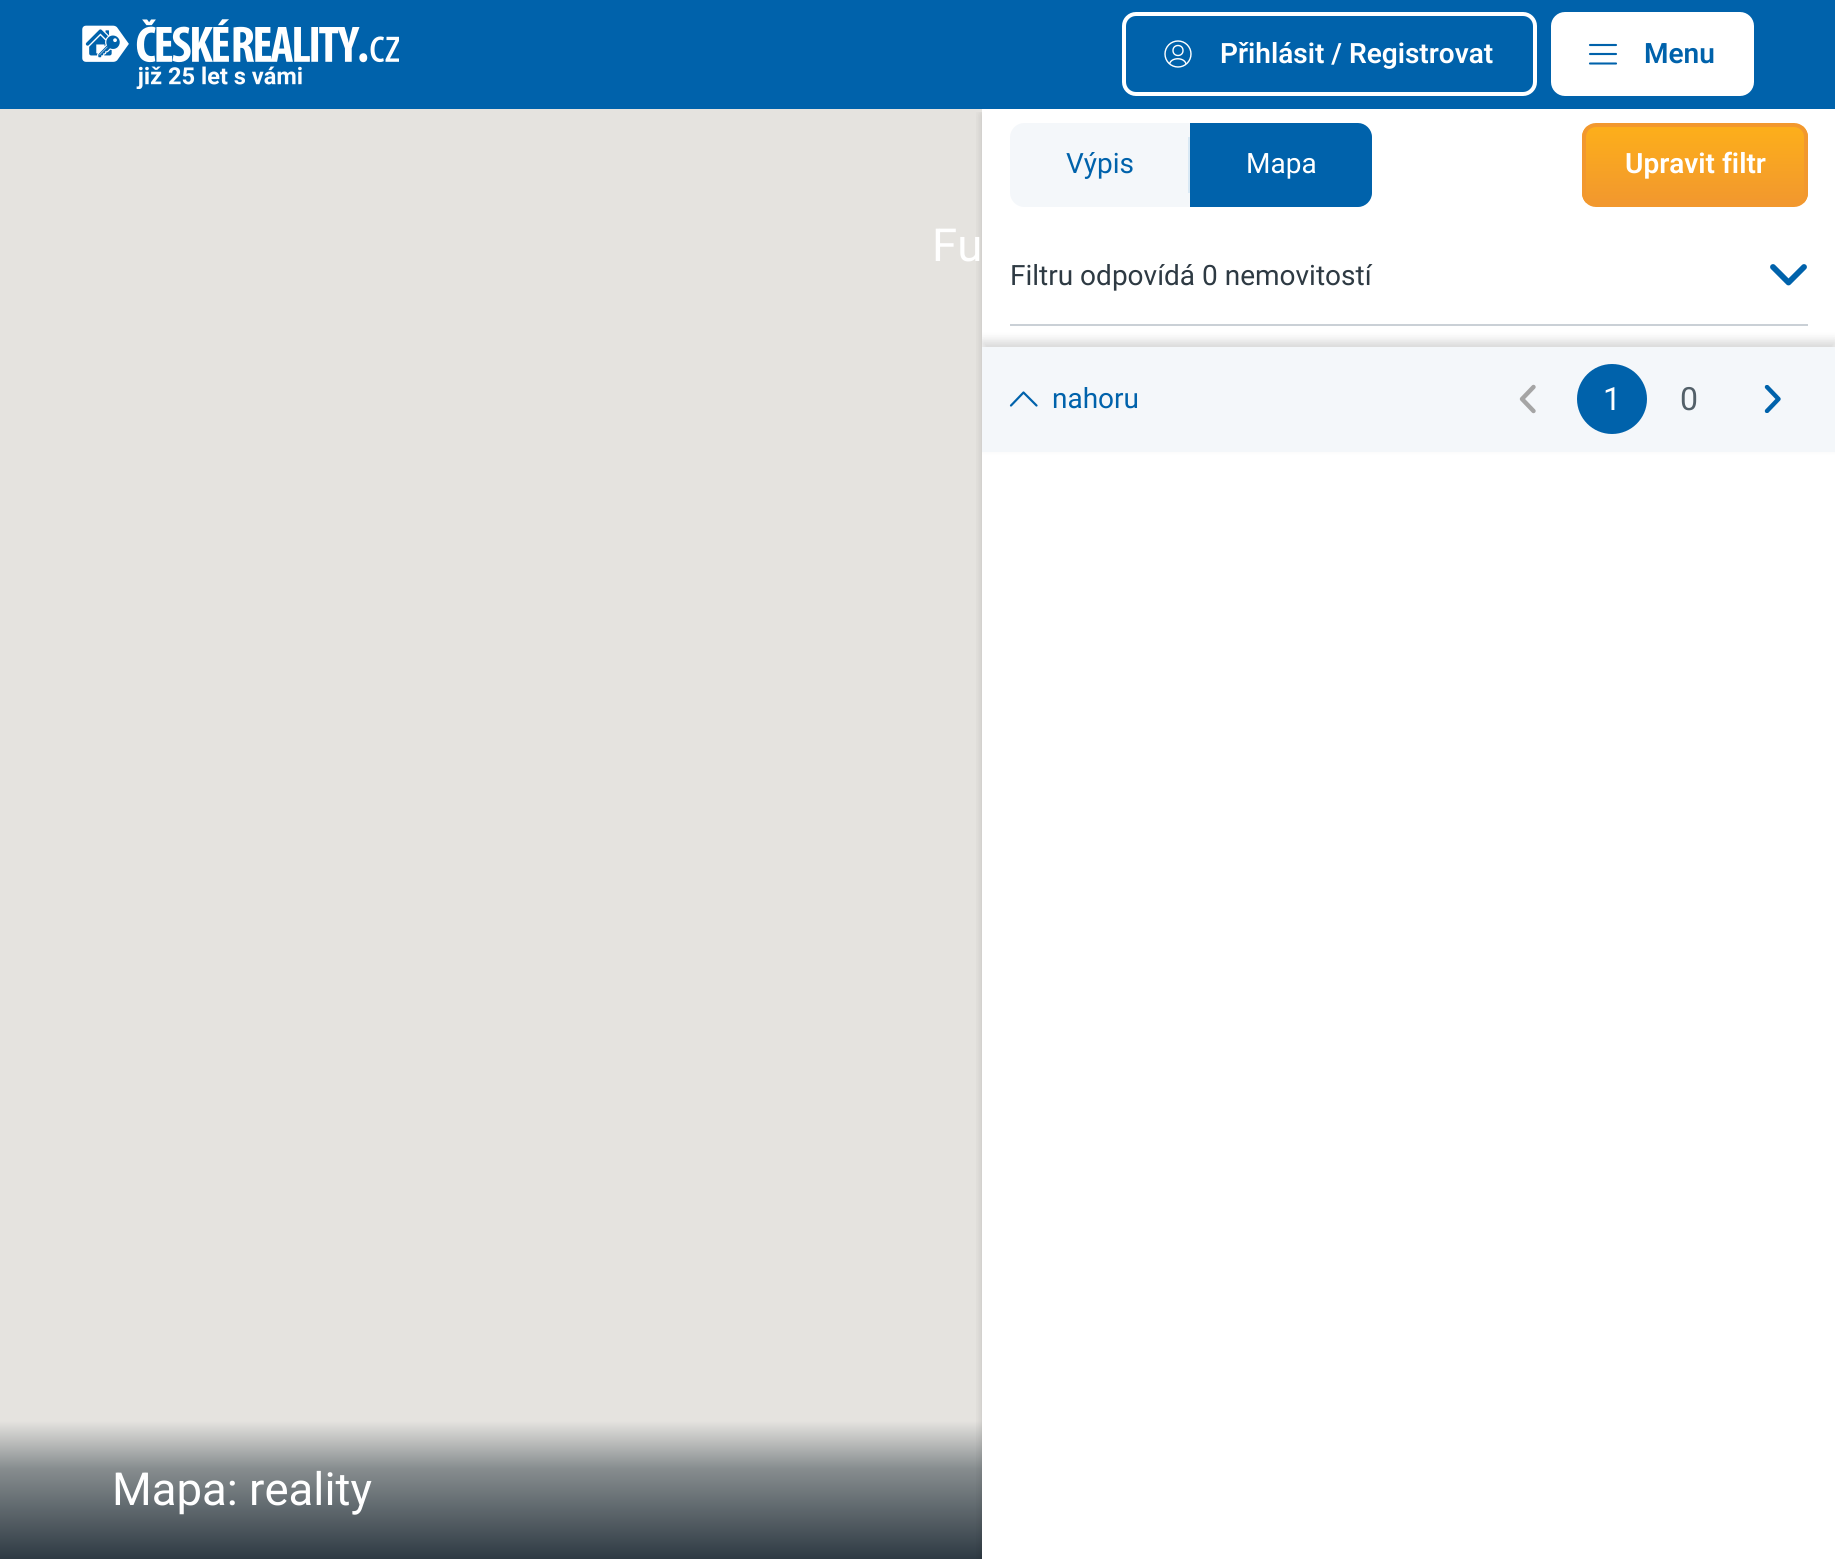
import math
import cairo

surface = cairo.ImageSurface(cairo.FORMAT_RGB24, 1835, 1559)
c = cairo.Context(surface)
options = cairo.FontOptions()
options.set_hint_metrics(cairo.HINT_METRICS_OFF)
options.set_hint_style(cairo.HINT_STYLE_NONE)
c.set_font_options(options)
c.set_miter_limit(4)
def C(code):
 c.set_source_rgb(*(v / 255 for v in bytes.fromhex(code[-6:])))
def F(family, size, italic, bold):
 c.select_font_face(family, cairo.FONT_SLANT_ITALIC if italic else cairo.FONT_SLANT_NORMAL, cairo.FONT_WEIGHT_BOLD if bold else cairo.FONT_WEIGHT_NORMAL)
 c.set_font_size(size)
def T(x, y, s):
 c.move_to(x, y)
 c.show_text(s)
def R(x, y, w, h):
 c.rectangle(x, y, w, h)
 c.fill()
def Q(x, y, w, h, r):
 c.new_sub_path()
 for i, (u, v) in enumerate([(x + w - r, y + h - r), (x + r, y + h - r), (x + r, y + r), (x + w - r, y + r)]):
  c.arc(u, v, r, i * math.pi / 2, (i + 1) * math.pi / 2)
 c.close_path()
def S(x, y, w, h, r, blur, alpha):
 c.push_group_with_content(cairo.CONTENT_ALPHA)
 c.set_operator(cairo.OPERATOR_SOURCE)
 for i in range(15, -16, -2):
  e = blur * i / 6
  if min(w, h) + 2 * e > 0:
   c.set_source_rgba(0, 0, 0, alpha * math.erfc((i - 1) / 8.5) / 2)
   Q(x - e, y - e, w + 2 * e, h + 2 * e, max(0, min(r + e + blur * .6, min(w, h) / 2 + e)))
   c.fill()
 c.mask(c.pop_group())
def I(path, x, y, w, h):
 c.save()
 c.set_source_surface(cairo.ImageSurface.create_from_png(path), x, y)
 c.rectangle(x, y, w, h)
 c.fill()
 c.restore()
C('ffffff')
c.paint()
C('e5e3df')
R(0,109,982,1312)
gradient = cairo.LinearGradient(491,1421,491,1559)
gradient.add_color_stop_rgba(0,0.898,0.89,0.875,1)
gradient.add_color_stop_rgba(.35,0.525,0.549,0.557,1)
gradient.add_color_stop_rgba(1,0.18,0.227,0.263,1)
c.set_source(gradient)
R(0,1421,982,138)
c.save()
c.rectangle(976,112,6,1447)
c.clip()
C('000000')
S(982,114,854,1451,0,5,.16)
c.restore()
C('0062ab')
R(0,0,1835,109)
I('1.png',82,19,317,70)
Q(1124,14,411,80,12)
C('ffffff')
c.set_line_width(4)
c.stroke()
c.arc(1178,54,13,0,2 * math.pi)
c.set_line_width(1.4)
c.stroke()
c.new_path()
c.move_to(1186,64)
c.curve_to(1184.5,57,1171,57,1169.5,64)
c.stroke()
c.arc(1178,50.5,5,0,2 * math.pi)
c.stroke()
F('Roboto SemiBold',28,0,0)
T(1220,63,'Přihlásit / Registrovat')
Q(1551,12,203,84,14)
c.fill()
c.new_path()
c.move_to(1590,45)
c.line_to(1616,45)
c.move_to(1590,54)
c.line_to(1616,54)
c.move_to(1590,63.5)
c.line_to(1616,63.5)
C('0062ab')
c.set_line_width(2.1)
c.set_line_cap(cairo.LINE_CAP_ROUND)
c.set_line_join(cairo.LINE_JOIN_ROUND)
c.stroke()
T(1644,63,'Menu')
F('Roboto',45.5,0,0)
C('ffffff')
T(932,261,'Fu')
C('f4f7fa')
c.new_path()
c.move_to(1024,123)
c.line_to(1190,123)
c.line_to(1190,207)
c.line_to(1024,207)
c.curve_to(1016.5,207,1010,200.5,1010,193)
c.line_to(1010,137)
c.curve_to(1010,129.5,1016.5,123,1024,123)
c.close_path()
c.fill()
F('Roboto',28,0,0)
C('0062ab')
T(1066,173,'Výpis')
C('d9e9f5')
R(1188,137,2,56)
C('0062ab')
c.new_path()
c.move_to(1190,123)
c.line_to(1358,123)
c.curve_to(1365.5,123,1372,129.5,1372,137)
c.line_to(1372,193)
c.curve_to(1372,200.5,1365.5,207,1358,207)
c.line_to(1190,207)
c.close_path()
c.fill()
C('ffffff')
T(1246,173,'Mapa')
c.save()
Q(1582,123,226,84,14)
c.clip()
gradient = cairo.LinearGradient(1695,126,1695,203)
gradient.add_color_stop_rgba(0,0.992,0.686,0.102,1)
gradient.add_color_stop_rgba(1,0.949,0.596,0.18,1)
c.set_source(gradient)
R(1582,126,226,77)
c.restore()
Q(1584,125,222,80,12)
C('f2982e')
c.set_line_width(4)
c.set_line_cap(cairo.LINE_CAP_BUTT)
c.set_line_join(cairo.LINE_JOIN_MITER)
c.stroke()
F('Roboto SemiBold',28,0,0)
C('ffffff')
T(1625,173,'Upravit filtr')
F('Roboto',28,0,0)
C('2e3a43')
T(1010,285,'Filtru odpovídá 0 nemovitostí')
c.save()
c.new_path()
c.move_to(1807,264)
c.line_to(1807,289)
c.line_to(1770,289)
c.line_to(1770,264)
c.close_path()
c.clip()
c.new_path()
c.move_to(1807,264)
c.line_to(1807,285.5)
c.line_to(1770,285.5)
c.line_to(1770,264)
c.close_path()
c.clip()
c.new_path()
c.move_to(1773,267)
c.line_to(1788.5,282.5)
c.line_to(1804,267)
C('0062ab')
c.set_line_width(5.8)
c.set_line_cap(cairo.LINE_CAP_ROUND)
c.set_line_join(cairo.LINE_JOIN_ROUND)
c.stroke()
c.restore()
C('cad0d6')
R(1010,324,798,2)
c.save()
c.rectangle(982,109,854,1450)
c.clip()
C('000000')
S(982,341,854,105,0,5,.16)
c.restore()
C('f4f7fa')
R(982,347,853,105)
c.new_path()
c.move_to(1036.5,405.5)
c.line_to(1023.5,392.5)
c.line_to(1011,405.5)
C('0062ab')
c.set_line_width(2.2)
c.set_line_cap(cairo.LINE_CAP_ROUND)
c.set_line_join(cairo.LINE_JOIN_ROUND)
c.stroke()
T(1052,408,'nahoru')
c.new_path()
c.move_to(1533.5,387)
c.line_to(1522,399)
c.line_to(1533.5,411)
C('a5a5a5')
c.set_line_width(4.4)
c.stroke()
C('0062ab')
c.arc(1612,399,35,0,2 * math.pi)
c.fill()
F('Roboto',32,0,0)
C('ffffff')
T(1603,410,'1')
C('536069')
T(1680,410,'0')
c.save()
c.rectangle(1759,385,28,28)
c.clip()
c.new_path()
c.move_to(1767,411)
c.line_to(1778.5,399)
c.line_to(1767,387)
C('0062ab')
c.stroke()
c.restore()
F('Roboto',45.5,0,0)
C('ffffff')
T(112,1505,'Mapa: reality')
surface.write_to_png('o.png')
